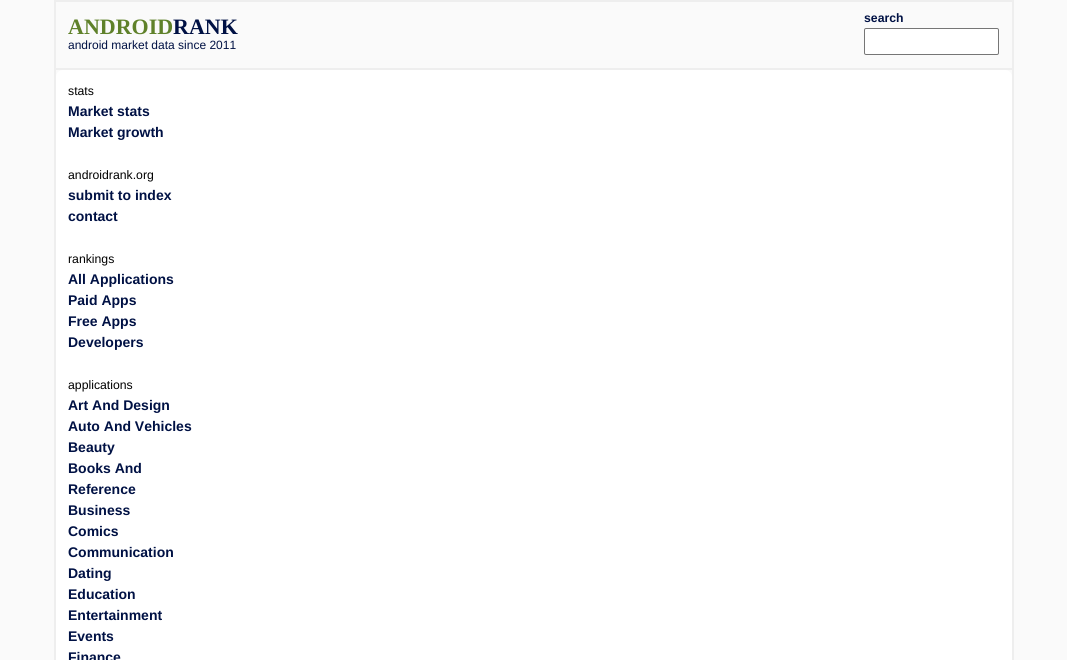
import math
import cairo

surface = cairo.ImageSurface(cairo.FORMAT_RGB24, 1067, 660)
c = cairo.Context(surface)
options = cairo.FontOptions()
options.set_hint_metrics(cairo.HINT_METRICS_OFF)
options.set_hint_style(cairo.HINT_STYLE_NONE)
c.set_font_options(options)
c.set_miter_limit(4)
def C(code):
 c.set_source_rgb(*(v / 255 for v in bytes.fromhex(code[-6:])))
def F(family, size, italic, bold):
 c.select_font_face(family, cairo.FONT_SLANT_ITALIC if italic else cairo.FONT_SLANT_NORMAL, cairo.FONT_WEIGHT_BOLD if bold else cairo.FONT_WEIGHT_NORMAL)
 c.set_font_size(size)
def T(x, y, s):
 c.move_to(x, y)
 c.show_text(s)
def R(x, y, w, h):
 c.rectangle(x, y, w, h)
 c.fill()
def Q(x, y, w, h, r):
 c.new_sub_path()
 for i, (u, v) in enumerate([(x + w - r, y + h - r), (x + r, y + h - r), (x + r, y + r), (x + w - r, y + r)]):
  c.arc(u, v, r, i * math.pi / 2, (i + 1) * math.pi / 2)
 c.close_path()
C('fafafa')
c.paint()
C('eeeeee')
R(1012,0,2,660)
R(54,0,2,660)
R(56,0,956,2)
R(56,68,956,2)
F('Liberation Sans',12.25,0,1)
C('001144')
T(864,22,'search')
C('ffffff')
Q(864.5,28.5,134,26,1.5)
c.fill_preserve()
C('767676')
c.set_line_width(1)
c.stroke()
F('Liberation Serif',22,0,1)
C('5f812a')
T(68,34,'ANDROID')
C('001144')
T(173,34,'RANK')
F('Liberation Sans',12,0,0)
T(68,49,'android market data since 2011')
C('ffffff')
Q(56,70,956,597,7)
c.fill()
F('Liberation Sans',12.25,0,0)
C('000000')
T(68,95,'stats')
F('Liberation Sans',14,0,1)
C('001144')
T(68,116,'Market stats')
T(68,137,'Market growth')
F('Liberation Sans',12.25,0,0)
C('000000')
T(68,179,'androidrank.org')
F('Liberation Sans',14,0,1)
C('001144')
T(68,200,'submit to index')
T(68,221,'contact')
F('Liberation Sans',12.25,0,0)
C('000000')
T(68,263,'rankings')
F('Liberation Sans',14,0,1)
C('001144')
T(68,284,'All Applications')
T(68,305,'Paid Apps')
T(68,326,'Free Apps')
T(68,347,'Developers')
F('Liberation Sans',12.25,0,0)
C('000000')
T(68,389,'applications')
F('Liberation Sans',14,0,1)
C('001144')
T(68,410,'Art And Design')
T(68,431,'Auto And Vehicles')
T(68,452,'Beauty')
T(68,473,'Books And')
T(68,494,'Reference')
T(68,515,'Business')
T(68,536,'Comics')
T(68,557,'Communication')
T(68,578,'Dating')
T(68,599,'Education')
T(68,620,'Entertainment')
T(68,641,'Events')
T(68,662,'Finance')
surface.write_to_png('o.png')
